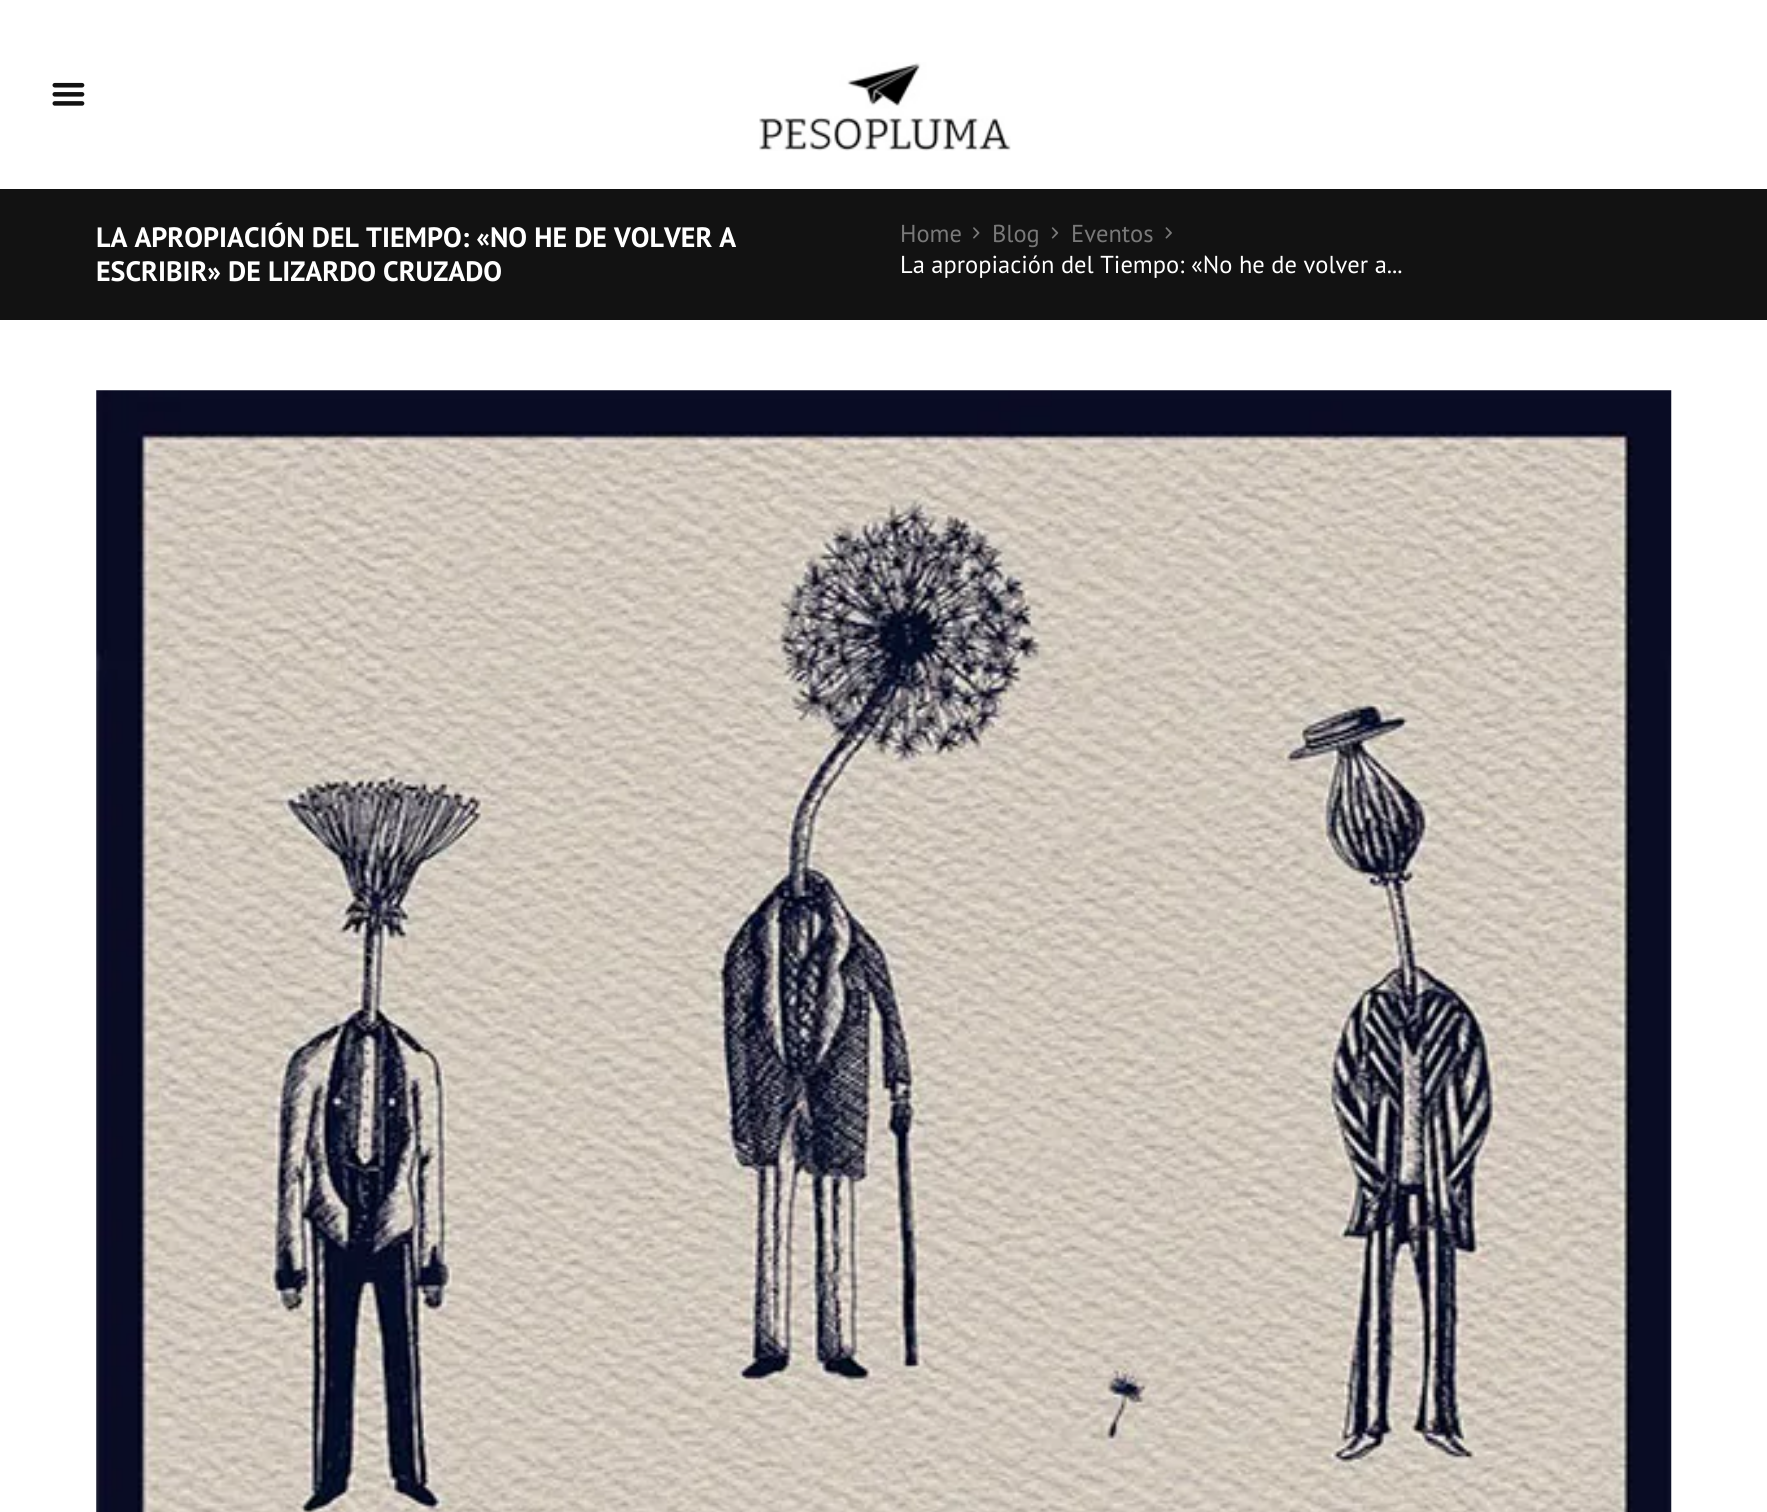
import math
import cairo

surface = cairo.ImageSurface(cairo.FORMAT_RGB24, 1767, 1512)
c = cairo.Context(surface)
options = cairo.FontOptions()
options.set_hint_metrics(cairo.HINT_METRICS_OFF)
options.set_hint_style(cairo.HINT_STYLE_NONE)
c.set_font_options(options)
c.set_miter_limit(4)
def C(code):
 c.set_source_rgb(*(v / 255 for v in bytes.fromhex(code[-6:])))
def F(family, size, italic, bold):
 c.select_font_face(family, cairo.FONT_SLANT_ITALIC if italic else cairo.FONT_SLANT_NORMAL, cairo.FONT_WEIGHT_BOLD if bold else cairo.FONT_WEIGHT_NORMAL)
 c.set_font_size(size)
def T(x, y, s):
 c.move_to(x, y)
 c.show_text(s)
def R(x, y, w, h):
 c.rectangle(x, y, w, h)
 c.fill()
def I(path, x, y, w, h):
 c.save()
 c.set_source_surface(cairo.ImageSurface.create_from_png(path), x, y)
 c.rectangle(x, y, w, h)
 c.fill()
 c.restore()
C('ffffff')
c.paint()
I('1.png',52,82,33,24)
I('2.png',759,62,252,89)
C('121212')
R(0,189,1767,131)
F('PT Sans',28,0,1)
C('ffffff')
T(96,247,'LA APROPIACIÓN DEL TIEMPO: «NO HE DE VOLVER A')
T(96,281,'ESCRIBIR» DE LIZARDO CRUZADO')
F('PT Sans',24.5,0,0)
C('797979')
T(900,242,'Home')
I('3.png',973,227,7,12)
T(992,242,'Blog')
I('4.png',1051,227,8,12)
T(1071,242,'Eventos')
I('5.png',1165,227,7,12)
C('ffffff')
T(900,273,'La apropiación del Tiempo: «No he de volver a...')
I('6.png',96,390,1576,1122)
surface.write_to_png('o.png')
